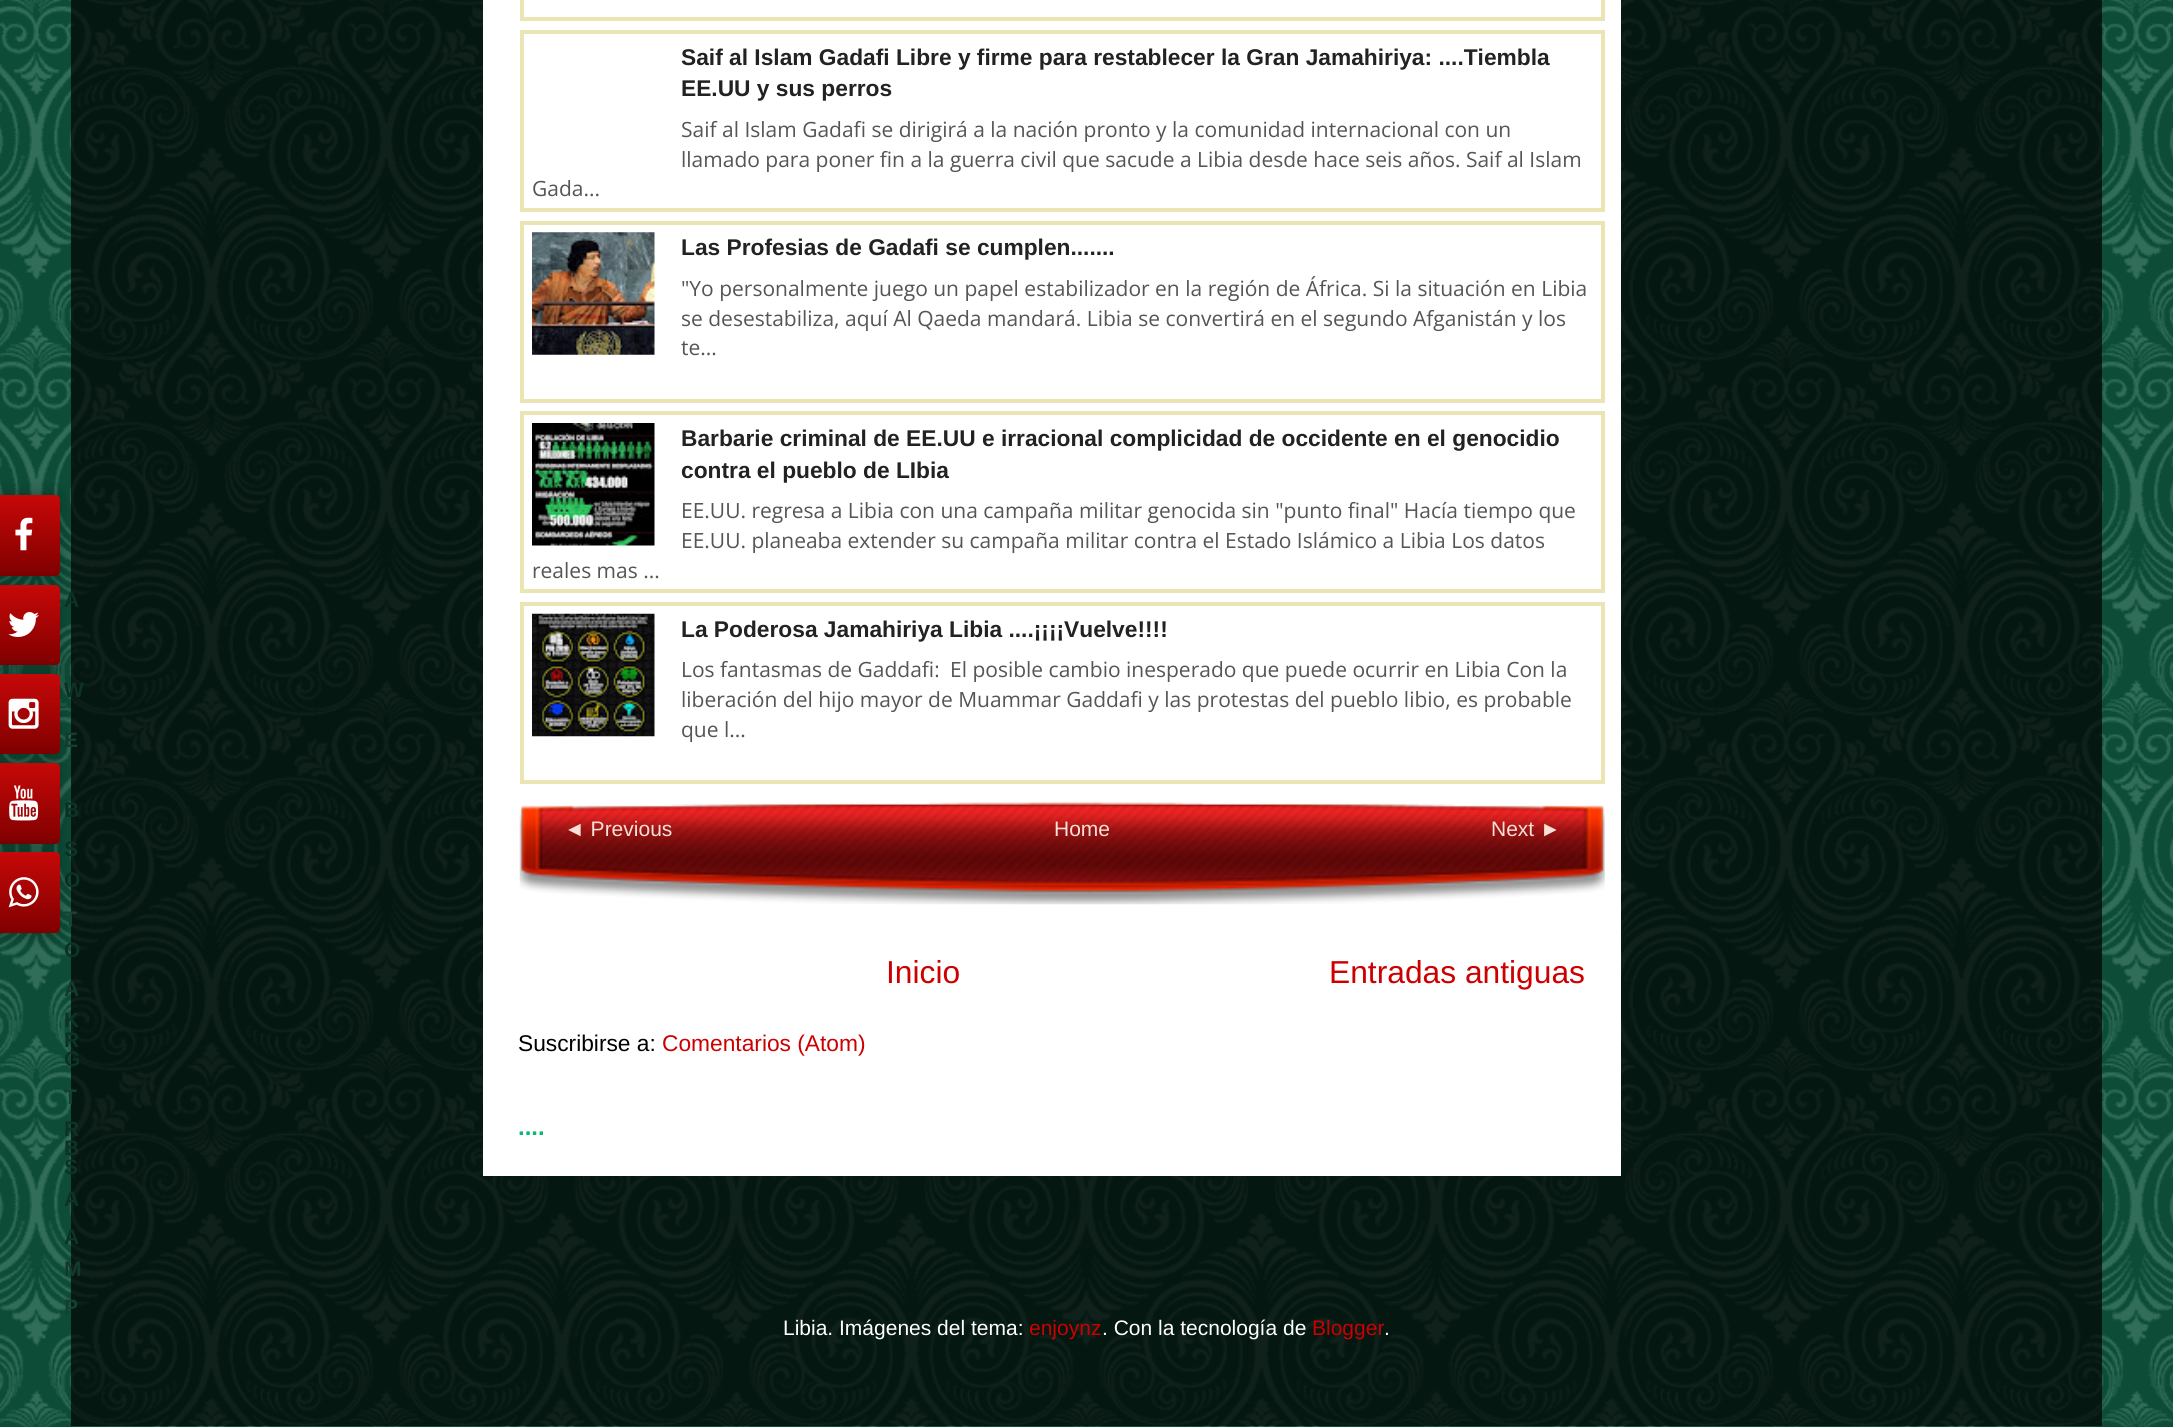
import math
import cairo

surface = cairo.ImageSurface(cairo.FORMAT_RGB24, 2173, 1427)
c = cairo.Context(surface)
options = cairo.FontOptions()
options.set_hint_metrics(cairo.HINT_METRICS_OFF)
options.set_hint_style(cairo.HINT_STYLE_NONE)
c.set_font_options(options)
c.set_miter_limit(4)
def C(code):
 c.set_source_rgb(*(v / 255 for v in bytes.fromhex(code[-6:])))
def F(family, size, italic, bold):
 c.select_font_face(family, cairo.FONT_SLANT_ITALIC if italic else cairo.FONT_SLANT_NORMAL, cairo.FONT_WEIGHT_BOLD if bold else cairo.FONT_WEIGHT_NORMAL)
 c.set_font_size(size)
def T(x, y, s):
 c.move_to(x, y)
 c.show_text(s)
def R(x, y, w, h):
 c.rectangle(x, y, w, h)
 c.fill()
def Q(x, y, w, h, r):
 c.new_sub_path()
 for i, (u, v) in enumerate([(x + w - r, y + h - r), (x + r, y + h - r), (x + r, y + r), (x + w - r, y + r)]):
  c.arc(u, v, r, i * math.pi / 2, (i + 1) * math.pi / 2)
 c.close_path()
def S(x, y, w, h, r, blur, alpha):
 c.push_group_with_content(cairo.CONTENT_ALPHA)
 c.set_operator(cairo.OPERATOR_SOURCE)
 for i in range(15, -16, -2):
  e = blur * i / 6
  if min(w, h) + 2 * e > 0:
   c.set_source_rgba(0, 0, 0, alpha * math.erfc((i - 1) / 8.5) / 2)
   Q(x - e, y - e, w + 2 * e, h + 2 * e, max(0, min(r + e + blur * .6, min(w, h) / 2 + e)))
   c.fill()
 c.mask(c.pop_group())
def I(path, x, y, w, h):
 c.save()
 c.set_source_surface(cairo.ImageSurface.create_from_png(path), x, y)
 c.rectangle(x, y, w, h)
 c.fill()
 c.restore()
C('0f5f44')
c.paint()
C('051d14')
R(71,0,2031,1426)
I('1.png',0,0,2173,1427)
C('000000')
S(-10,495,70,81,5,9,.3)
gradient = cairo.LinearGradient(-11,495,-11,576)
gradient.add_color_stop_rgba(0,0.78,0.031,0.031,1)
gradient.add_color_stop_rgba(1,0.502,0,0,1)
c.set_source(gradient)
c.new_path()
c.move_to(-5,495)
c.line_to(55,495)
c.curve_to(58,495,60,497,60,500)
c.line_to(60,571)
c.curve_to(60,574,58,576,55,576)
c.line_to(-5,576)
c.close_path()
c.fill()
I('2.png',15,517,18,34)
F('Liberation Sans',21,0,1)
C('0c3326')
T(64,607,'A')
C('134031')
T(64,747,'E')
C('0c3326')
T(64,817,'B')
T(64,887,'O')
T(64,957,'O')
T(64,1027,'K')
C('000000')
S(-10,585,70,80,5,9,.3)
gradient = cairo.LinearGradient(-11,585,-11,665)
gradient.add_color_stop_rgba(0,0.78,0.031,0.031,1)
gradient.add_color_stop_rgba(1,0.502,0,0,1)
c.set_source(gradient)
c.new_path()
c.move_to(-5,585)
c.line_to(55,585)
c.curve_to(58,585,60,587,60,590)
c.line_to(60,660)
c.curve_to(60,663,58,665,55,665)
c.line_to(-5,665)
c.close_path()
c.fill()
I('3.png',8,612,31,25)
C('0c3326')
T(64,697,'W')
T(64,1047,'R')
C('000000')
S(-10,674,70,80,5,9,.3)
gradient = cairo.LinearGradient(-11,674,-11,754)
gradient.add_color_stop_rgba(0,0.78,0.031,0.031,1)
gradient.add_color_stop_rgba(1,0.502,0,0,1)
c.set_source(gradient)
c.new_path()
c.move_to(-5,674)
c.line_to(55,674)
c.curve_to(58,674,60,676,60,679)
c.line_to(60,749)
c.curve_to(60,752,58,754,55,754)
c.line_to(-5,754)
c.close_path()
c.fill()
I('4.png',8,698,31,31)
C('0c3326')
T(64,856,'S')
C('194738')
T(64,926,'T')
C('143a2d')
T(64,996,'A')
C('0c3326')
T(64,1066,'G')
T(64,1136,'R')
T(64,1206,'A')
C('143a2d')
T(64,1276,'M')
C('000000')
S(-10,763,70,81,5,9,.3)
gradient = cairo.LinearGradient(-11,763,-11,844)
gradient.add_color_stop_rgba(0,0.78,0.031,0.031,1)
gradient.add_color_stop_rgba(1,0.502,0,0,1)
c.set_source(gradient)
c.new_path()
c.move_to(-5,763)
c.line_to(55,763)
c.curve_to(58,763,60,765,60,768)
c.line_to(60,839)
c.curve_to(60,842,58,844,55,844)
c.line_to(-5,844)
c.close_path()
c.fill()
C('000000')
S(-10,852,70,81,5,9,.3)
gradient = cairo.LinearGradient(-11,852,-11,933)
gradient.add_color_stop_rgba(0,0.78,0.031,0.031,1)
gradient.add_color_stop_rgba(1,0.502,0,0,1)
c.set_source(gradient)
c.new_path()
c.move_to(-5,852)
c.line_to(55,852)
c.curve_to(58,852,60,854,60,857)
c.line_to(60,928)
c.curve_to(60,931,58,933,55,933)
c.line_to(-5,933)
c.close_path()
c.fill()
I('5.png',8,877,31,31)
C('134031')
T(64,1104,'T')
C('0c3326')
T(64,1174,'S')
T(64,1244,'A')
C('134031')
T(64,1314,'P')
I('6.png',9,785,30,36)
C('0c3326')
T(64,1155,'B')
C('ffffff')
R(483,0,1138,1176)
c.rectangle(522,-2,1081,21)
C('eae5b2')
c.set_line_width(4)
c.stroke()
c.rectangle(522,32,1081,178)
c.stroke()
F('Liberation Sans',22.75,0,1)
C('222222')
T(681,65,'Saif al Islam Gadafi Libre y firme para restablecer la Gran Jamahiriya: ....Tiembla')
T(681,96,'EE.UU y sus perros')
F('Open Sans',21,0,0)
C('555555')
T(681,137,'Saif al Islam Gadafi se dirigirá a la nación pronto y la comunidad internacional con un')
T(681,167,'llamado para poner fin a la guerra civil que sacude a Libia desde hace seis años. Saif al Islam')
T(532,196,'Gada...')
c.rectangle(522,223,1081,178)
C('eae5b2')
c.stroke()
I('7.png',532,232,123,123)
F('Liberation Sans',22.75,0,1)
C('222222')
T(681,255,'Las Profesias de Gadafi se cumplen.......')
F('Open Sans',21,0,0)
C('555555')
T(681,296,'"Yo personalmente juego un papel estabilizador en la región de África. Si la situación en Libia')
T(681,326,'se desestabiliza, aquí Al Qaeda mandará. Libia se convertirá en el segundo Afganistán y los')
T(681,355,'te...')
c.rectangle(522,413,1081,178)
C('eae5b2')
c.stroke()
I('8.png',532,423,123,123)
F('Liberation Sans',22.75,0,1)
C('222222')
T(681,446,'Barbarie criminal de EE.UU e irracional complicidad de occidente en el genocidio')
T(681,478,'contra el pueblo de LIbia')
F('Open Sans',21,0,0)
C('555555')
T(681,518,'EE.UU. regresa a Libia con una campaña militar genocida sin "punto final" Hacía tiempo que')
T(681,548,'EE.UU. planeaba extender su campaña militar contra el Estado Islámico a Libia Los datos')
T(532,578,'reales mas ...')
c.rectangle(522,604,1081,178)
C('eae5b2')
c.stroke()
I('9.png',532,613,123,124)
F('Liberation Sans',22.75,0,1)
C('222222')
T(681,637,'La Poderosa Jamahiriya Libia ....¡¡¡¡Vuelve!!!!')
F('Open Sans',21,0,0)
C('555555')
T(681,677,'Los fantasmas de Gaddafi:')
T(950,677,'El posible cambio inesperado que puede ocurrir en Libia Con la')
T(681,707,'liberación del hijo mayor de Muammar Gaddafi y las protestas del pueblo libio, es probable')
T(681,737,'que l...')
I('10.png',519,801,1086,104)
F('Liberation Sans',21,0,0)
C('f7e0d5')
T(564,836,'◄ Previous')
T(1054,836,'Home')
T(1491,836,'Next ►')
F('Liberation Sans',31.75,0,0)
C('cc0000')
T(886,983,'Inicio')
T(1329,983,'Entradas antiguas')
F('Liberation Sans',22.75,0,0)
C('000000')
T(518,1051,'Suscribirse a:')
C('cc0000')
T(662,1051,'Comentarios (Atom)')
F('Liberation Sans',24,0,1)
C('09b872')
T(518,1135,'....')
F('Liberation Sans',21,0,0)
C('ffffff')
T(783,1335,'Libia. Imágenes del tema:')
C('cc0000')
T(1029,1335,'enjoynz')
C('ffffff')
T(1102,1335,'. Con la tecnología de')
C('cc0000')
T(1312,1335,'Blogger')
C('ffffff')
T(1384,1335,'.')
surface.write_to_png('o.png')
